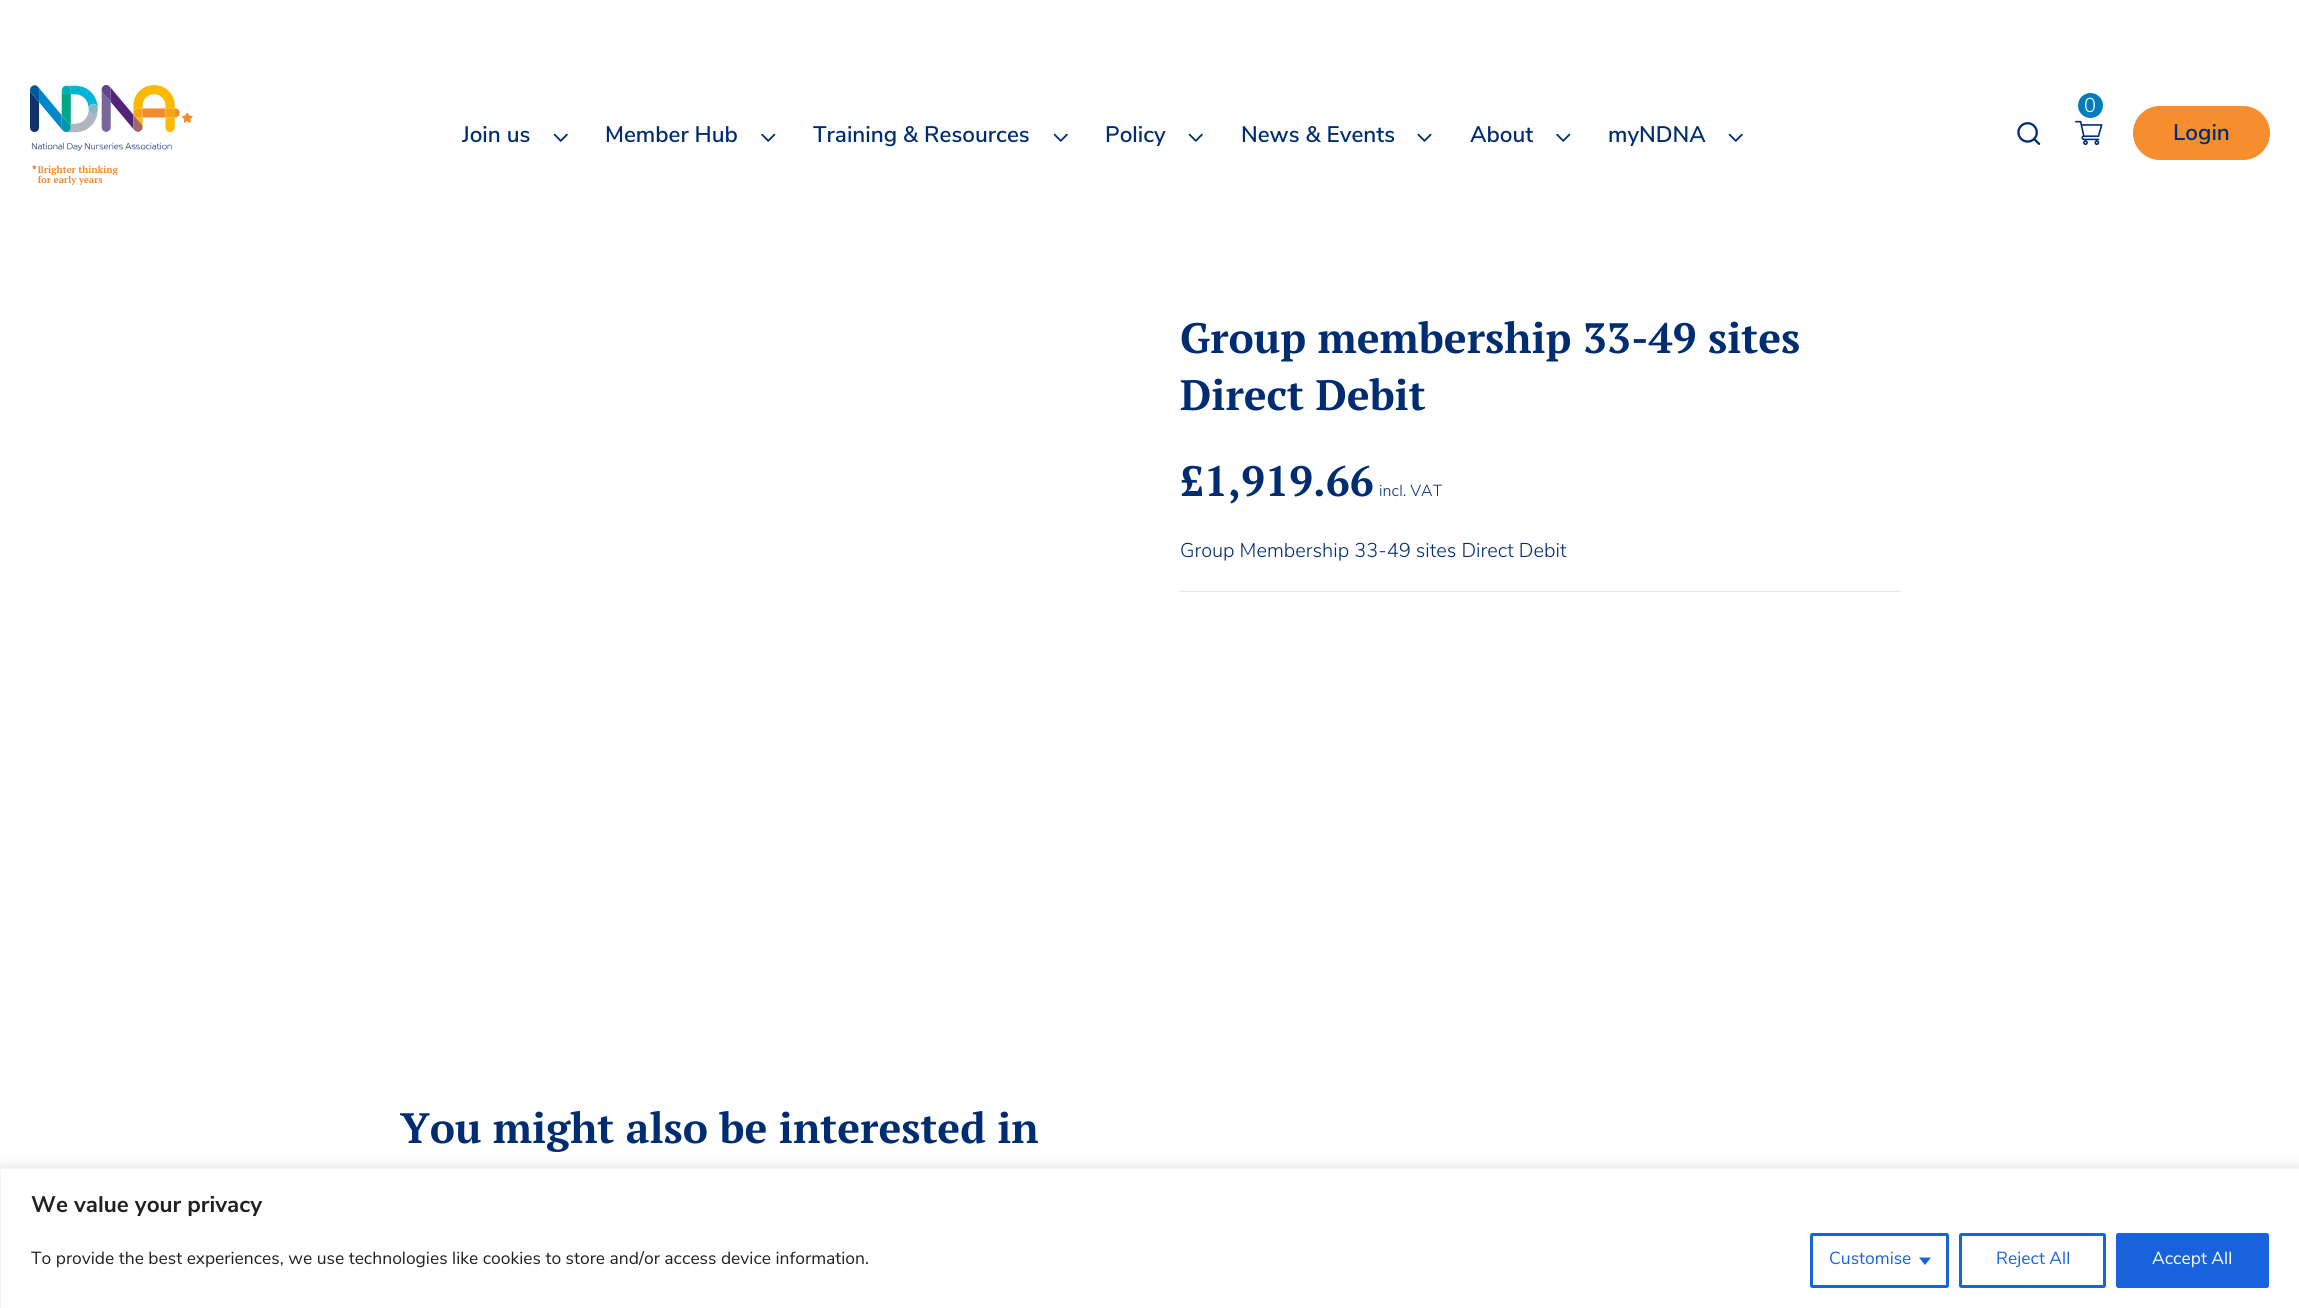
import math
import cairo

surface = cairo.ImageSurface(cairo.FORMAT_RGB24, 2299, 1308)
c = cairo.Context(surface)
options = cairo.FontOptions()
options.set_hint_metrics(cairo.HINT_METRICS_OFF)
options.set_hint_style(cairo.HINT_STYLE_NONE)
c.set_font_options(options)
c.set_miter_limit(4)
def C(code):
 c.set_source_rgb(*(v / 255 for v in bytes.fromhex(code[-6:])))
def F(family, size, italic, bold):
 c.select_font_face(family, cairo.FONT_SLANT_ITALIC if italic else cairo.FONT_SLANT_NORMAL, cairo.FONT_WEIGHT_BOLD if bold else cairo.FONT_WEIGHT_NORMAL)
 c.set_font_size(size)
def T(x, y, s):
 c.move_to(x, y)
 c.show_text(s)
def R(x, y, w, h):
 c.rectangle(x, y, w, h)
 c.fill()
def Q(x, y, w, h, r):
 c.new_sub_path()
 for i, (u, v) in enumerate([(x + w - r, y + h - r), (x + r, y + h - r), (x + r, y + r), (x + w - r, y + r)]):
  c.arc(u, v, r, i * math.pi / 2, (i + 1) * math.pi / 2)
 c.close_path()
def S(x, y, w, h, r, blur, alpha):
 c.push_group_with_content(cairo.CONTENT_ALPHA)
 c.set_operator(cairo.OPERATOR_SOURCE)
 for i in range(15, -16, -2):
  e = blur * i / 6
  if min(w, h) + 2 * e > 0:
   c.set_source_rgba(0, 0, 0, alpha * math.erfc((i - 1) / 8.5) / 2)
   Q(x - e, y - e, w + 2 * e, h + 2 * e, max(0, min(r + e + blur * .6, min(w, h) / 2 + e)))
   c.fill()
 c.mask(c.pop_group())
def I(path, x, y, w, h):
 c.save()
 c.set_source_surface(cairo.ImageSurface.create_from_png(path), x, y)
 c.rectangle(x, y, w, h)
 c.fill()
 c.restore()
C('ffffff')
c.paint()
I('1.png',30,85,150,100)
I('2.png',182,113,11,10)
I('3.png',182,113,11,10)
F('Nunito Sans SemiBold',22.5,0,0)
C('002d72')
T(462,142,'Join us')
I('4.png',553,133,15,9)
T(605,142,'Member Hub')
I('5.png',761,133,15,9)
T(813,142,'Training & Resources')
I('4.png',1053,133,15,9)
T(1105,142,'Policy')
I('4.png',1188,133,15,9)
T(1241,142,'News & Events')
I('6.png',1417,133,15,9)
T(1470,142,'About')
I('5.png',1556,133,15,9)
T(1608,142,'myNDNA')
I('4.png',1728,133,15,9)
C('007dba')
c.arc(2090.5,105.5,12.5,0,2 * math.pi)
c.fill()
F('Nunito Sans Light',20,0,0)
C('ffffff')
T(2084,112,'0')
I('7.png',2075,120,28,25)
I('8.png',2017,122,24,23)
C('f68d2e')
Q(2133.5,106.5,136,53,26.5)
c.fill_preserve()
c.set_line_width(1)
c.stroke()
F('Nunito Sans SemiBold',22.5,0,0)
C('002d72')
T(2173,140,'Login')
F('PT Serif',42.5,0,1)
T(1180,353,'Group membership 33-49 sites')
T(1180,410,'Direct Debit')
T(1180,496,'£1,919.66')
F('Nunito Sans Light',16,0,0)
T(1379,496,'incl. VAT')
C('e5e7eb')
R(1180,591,720,1)
F('Nunito Sans Light',20,0,0)
C('002d72')
T(1180,557,'Group Membership 33-49 sites Direct Debit')
F('PT Serif',42.5,0,1)
T(400,1143,'You might also be interested in')
C('acabab')
S(0,1166,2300,142,0,6,.3)
C('ffffff')
c.rectangle(.5,1168.5,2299,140)
c.fill_preserve()
C('f4f4f4')
c.stroke()
F('Nunito Sans',22.5,0,1)
C('212121')
T(31,1212,'We value your privacy')
F('Nunito Sans',17.5,0,0)
T(31,1264,'To provide the best experiences, we use technologies like cookies to store and/or access device information.')
Q(1811.5,1234.5,136,52,1)
C('1863dc')
c.set_line_width(3)
c.stroke()
T(1829,1264,'Customise')
c.new_path()
c.move_to(1919,1257.5)
c.line_to(1931,1257.5)
c.line_to(1925,1265)
c.close_path()
c.fill()
Q(1960.5,1234.5,144,52,1)
c.stroke()
T(1996,1264,'Reject All')
Q(2117.5,1234.5,150,52,1)
c.fill_preserve()
c.stroke()
C('ffffff')
T(2152,1264,'Accept All')
surface.write_to_png('o.png')
